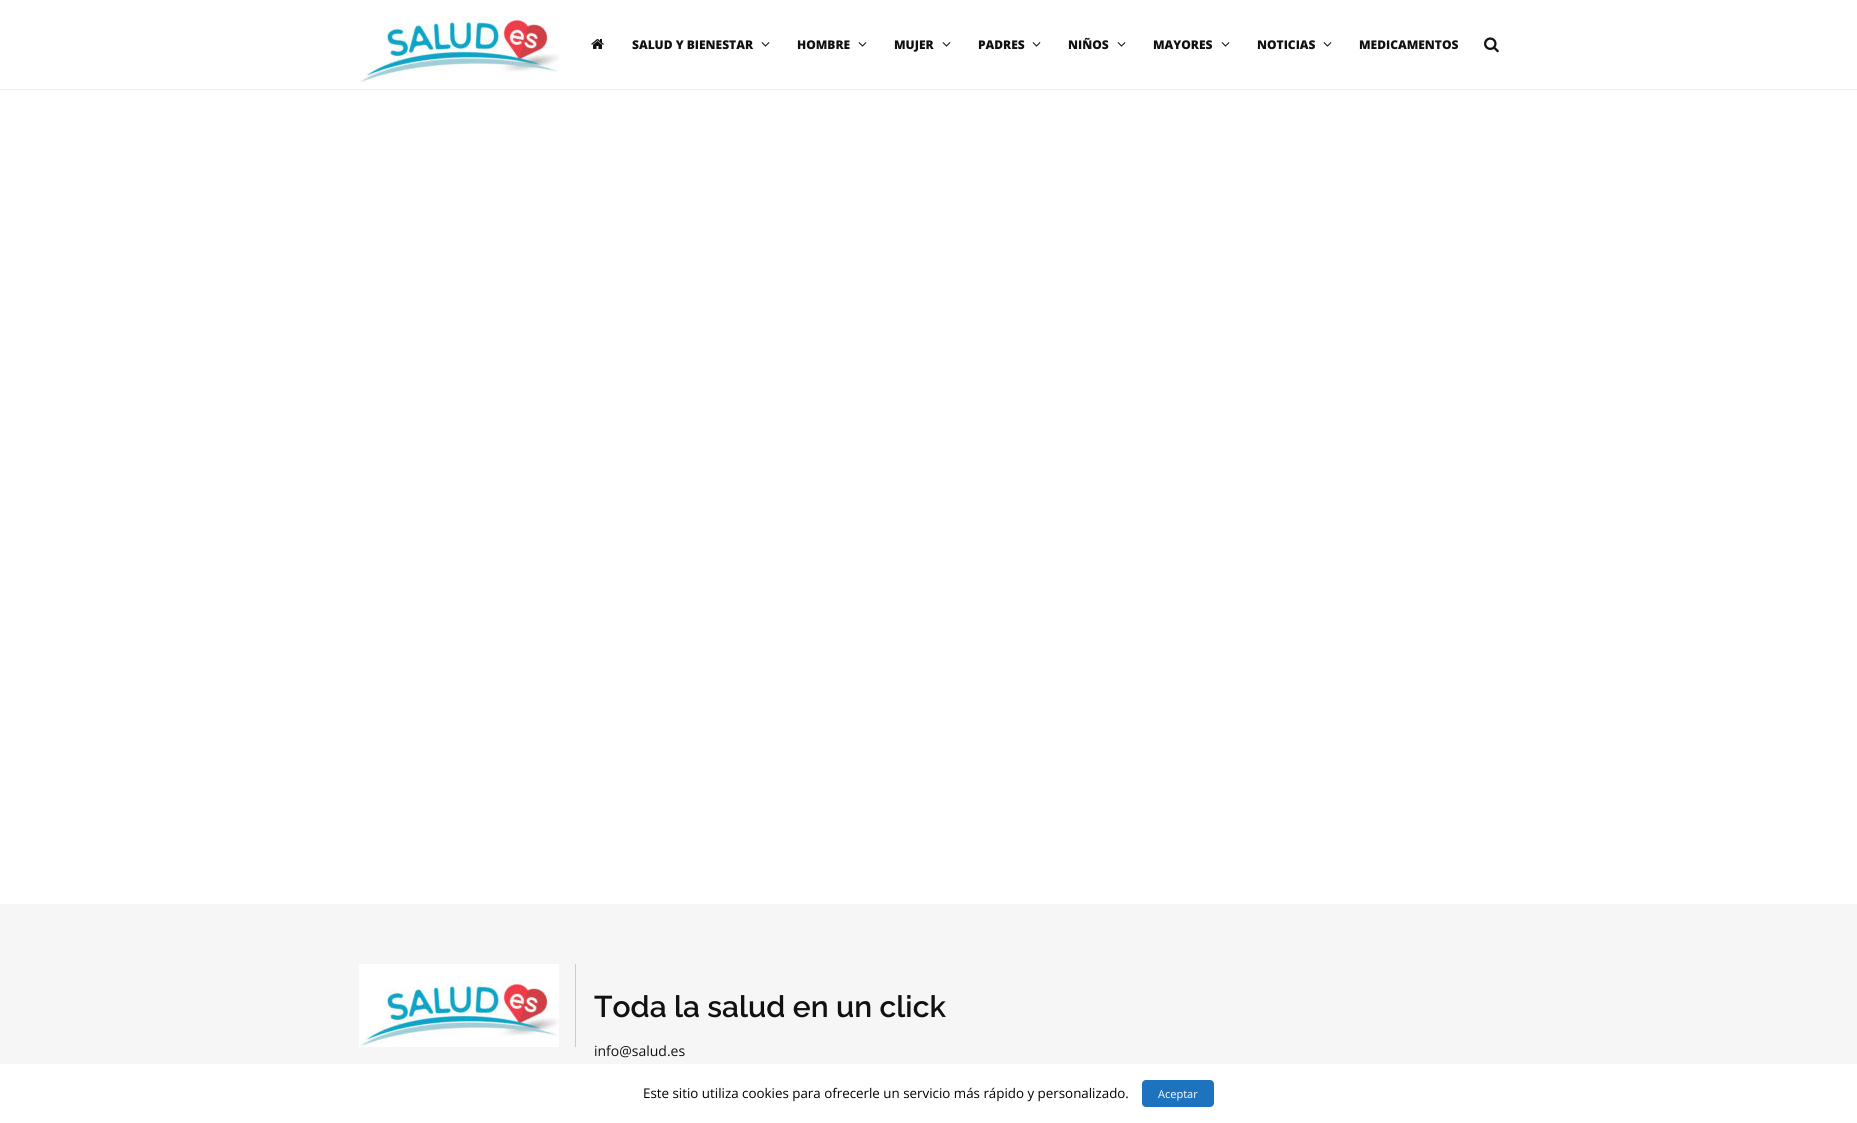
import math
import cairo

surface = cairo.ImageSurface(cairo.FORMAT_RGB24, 1857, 1123)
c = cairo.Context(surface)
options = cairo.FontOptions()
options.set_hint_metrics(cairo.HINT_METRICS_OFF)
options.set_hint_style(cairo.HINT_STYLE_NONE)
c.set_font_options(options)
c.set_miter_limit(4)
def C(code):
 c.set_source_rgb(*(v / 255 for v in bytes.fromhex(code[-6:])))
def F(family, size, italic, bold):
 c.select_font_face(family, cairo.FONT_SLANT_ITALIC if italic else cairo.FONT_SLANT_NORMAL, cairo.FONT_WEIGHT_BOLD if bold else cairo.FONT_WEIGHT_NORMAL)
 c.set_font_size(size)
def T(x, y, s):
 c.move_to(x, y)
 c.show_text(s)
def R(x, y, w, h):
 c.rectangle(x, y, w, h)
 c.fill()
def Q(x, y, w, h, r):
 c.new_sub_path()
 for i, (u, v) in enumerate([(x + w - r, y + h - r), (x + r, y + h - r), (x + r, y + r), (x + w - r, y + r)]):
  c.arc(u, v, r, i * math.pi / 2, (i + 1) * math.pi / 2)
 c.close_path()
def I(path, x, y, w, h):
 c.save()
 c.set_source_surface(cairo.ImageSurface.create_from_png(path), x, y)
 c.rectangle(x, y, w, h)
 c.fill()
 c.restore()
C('ffffff')
c.paint()
C('eeeeee')
R(0,89,1857,1)
I('1.png',359,16,200,67)
I('2.png',591,39,13,10)
F('Open Sans ExtraBold',12,0,0)
C('111111')
T(632,49,'SALUD Y BIENESTAR')
I('3.png',761,42,9,5)
T(797,49,'HOMBRE')
I('3.png',858,42,9,5)
T(894,49,'MUJER')
I('3.png',942,42,9,5)
T(978,49,'PADRES')
I('3.png',1032,42,9,5)
T(1068,49,'NIÑOS')
I('3.png',1117,42,9,5)
T(1153,49,'MAYORES')
I('3.png',1221,42,9,5)
T(1257,49,'NOTICIAS')
I('3.png',1323,42,9,5)
T(1359,49,'MEDICAMENTOS')
I('4.png',1484,37,15,16)
C('f6f6f6')
R(0,904,1857,160)
C('cccccc')
R(575,964,1,83)
I('5.png',359,964,200,83)
F('Raleway SemiBold',30,0,0)
C('111111')
T(594,1017,'Toda la salud en un click')
F('Open Sans',14,0,0)
T(594,1056,'info@salud.es')
F('Open Sans',13.35,0,0)
C('000000')
T(643,1098,'Este sitio utiliza cookies para ofrecerle un servicio más rápido y personalizado.')
C('1e73be')
Q(1142,1080,72,27,4)
c.fill()
F('Open Sans',11,0,0)
C('ffffff')
T(1158,1098,'Aceptar')
surface.write_to_png('o.png')
